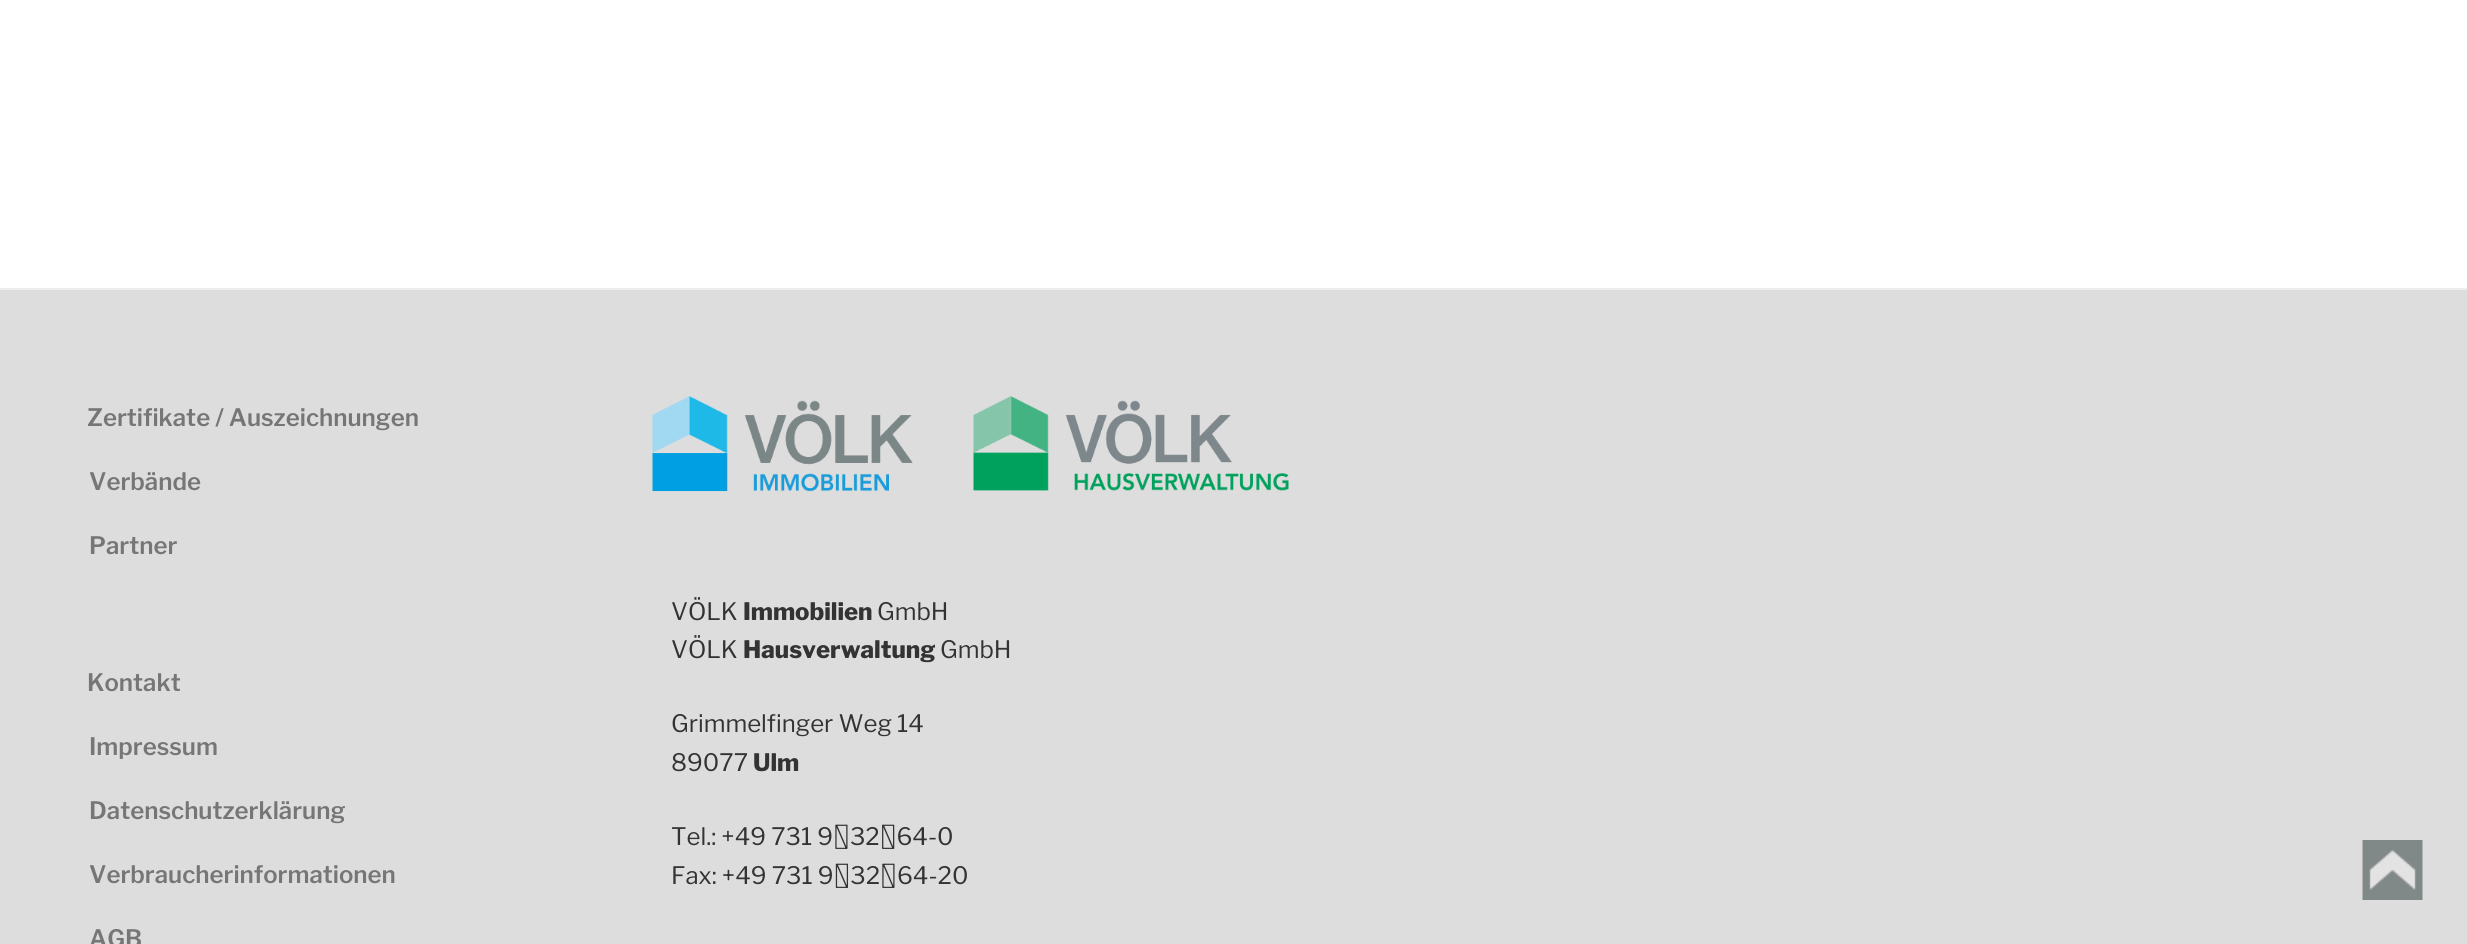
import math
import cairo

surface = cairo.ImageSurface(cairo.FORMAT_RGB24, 2467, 944)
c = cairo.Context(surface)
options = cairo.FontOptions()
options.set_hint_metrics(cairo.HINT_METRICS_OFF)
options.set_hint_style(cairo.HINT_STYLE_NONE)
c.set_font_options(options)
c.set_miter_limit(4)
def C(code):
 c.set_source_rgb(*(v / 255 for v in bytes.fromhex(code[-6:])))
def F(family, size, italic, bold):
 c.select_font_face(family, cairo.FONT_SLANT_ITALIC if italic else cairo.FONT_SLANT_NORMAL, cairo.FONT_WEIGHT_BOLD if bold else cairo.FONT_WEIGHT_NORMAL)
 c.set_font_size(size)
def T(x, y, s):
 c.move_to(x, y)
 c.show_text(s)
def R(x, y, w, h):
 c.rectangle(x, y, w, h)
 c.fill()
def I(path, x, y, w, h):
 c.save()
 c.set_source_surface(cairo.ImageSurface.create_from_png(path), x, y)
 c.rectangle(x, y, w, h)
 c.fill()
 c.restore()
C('ffffff')
c.paint()
C('dddddd')
R(0,290,2467,654)
C('eeeeee')
R(0,288,2467,2)
F('Libre Franklin Thin',24,0,0)
C('767676')
T(87,426,'Zertifikate / Auszeichnungen')
T(89,490,'Verbände')
T(89,554,'Partner')
T(87,691,'Kontakt')
T(89,755,'Impressum')
T(89,819,'Datenschutzerklärung')
T(89,883,'Verbraucherinformationen')
T(89,947,'AGB')
I('1.png',652,396,261,96)
I('2.png',973,396,316,95)
F('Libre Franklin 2 Thin',24,0,0)
C('333333')
T(671,620,'VÖLK')
F('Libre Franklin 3 Thin',24,0,0)
T(743,620,'Immobilien')
F('Libre Franklin 2 Thin',24,0,0)
T(877,620,'GmbH')
T(671,658,'VÖLK')
F('Libre Franklin 3 Thin',24,0,0)
T(743,658,'Hausverwaltung')
F('Libre Franklin 2 Thin',24,0,0)
T(940,658,'GmbH')
T(671,732,'Grimmelfinger Weg 14')
T(671,771,'89077')
F('Libre Franklin 3 Thin',24,0,0)
T(753,771,'Ulm')
F('Libre Franklin 2 Thin',24,0,0)
T(671,845,'Tel.: +49 731 9 32 64-0')
T(671,884,'Fax: +49 731 9 32 64-20')
I('3.png',2362,840,61,60)
surface.write_to_png('o.png')
